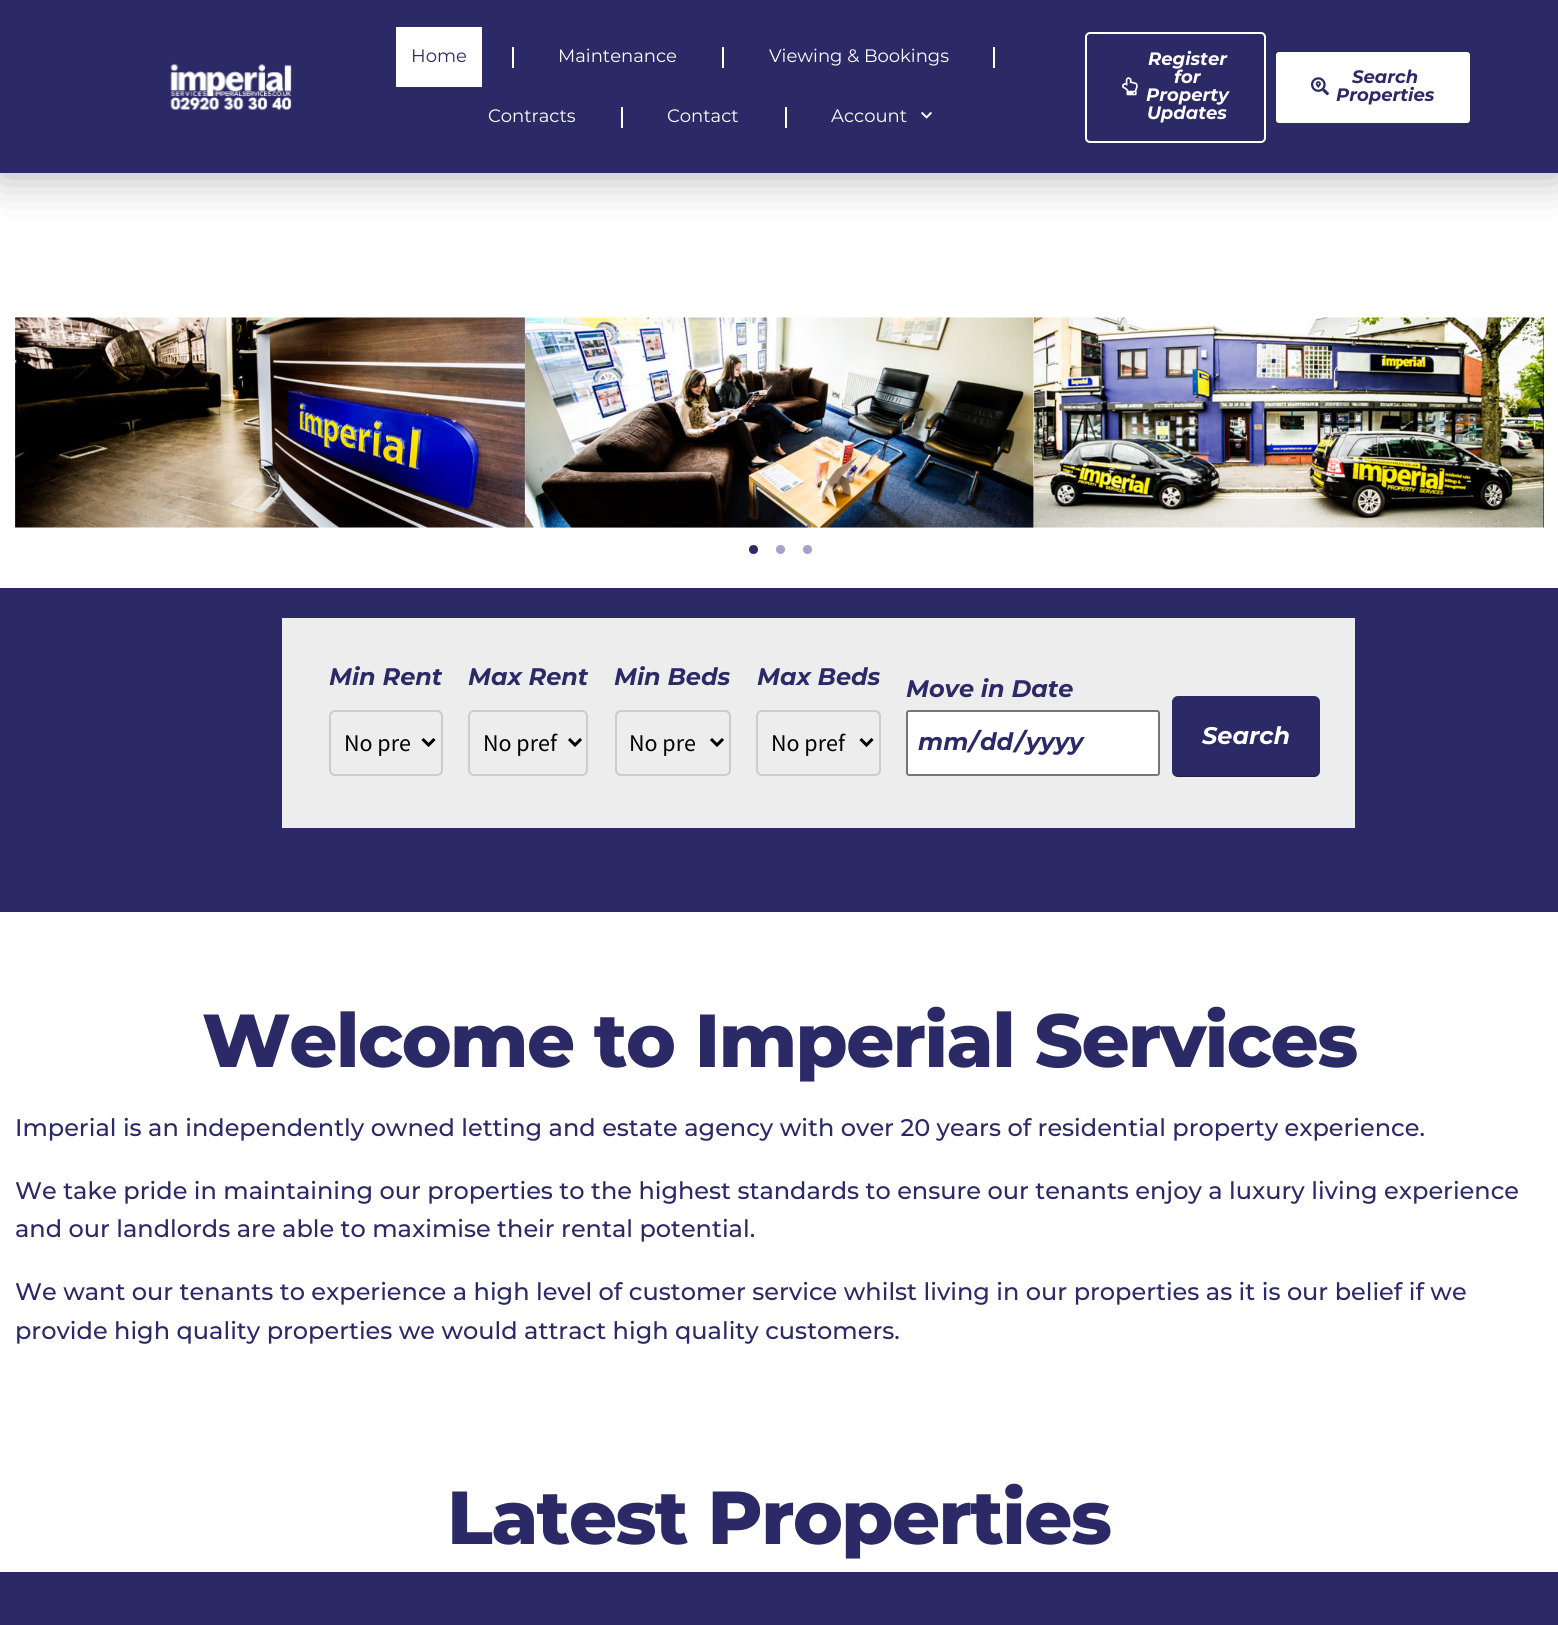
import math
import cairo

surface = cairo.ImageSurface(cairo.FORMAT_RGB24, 1558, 1625)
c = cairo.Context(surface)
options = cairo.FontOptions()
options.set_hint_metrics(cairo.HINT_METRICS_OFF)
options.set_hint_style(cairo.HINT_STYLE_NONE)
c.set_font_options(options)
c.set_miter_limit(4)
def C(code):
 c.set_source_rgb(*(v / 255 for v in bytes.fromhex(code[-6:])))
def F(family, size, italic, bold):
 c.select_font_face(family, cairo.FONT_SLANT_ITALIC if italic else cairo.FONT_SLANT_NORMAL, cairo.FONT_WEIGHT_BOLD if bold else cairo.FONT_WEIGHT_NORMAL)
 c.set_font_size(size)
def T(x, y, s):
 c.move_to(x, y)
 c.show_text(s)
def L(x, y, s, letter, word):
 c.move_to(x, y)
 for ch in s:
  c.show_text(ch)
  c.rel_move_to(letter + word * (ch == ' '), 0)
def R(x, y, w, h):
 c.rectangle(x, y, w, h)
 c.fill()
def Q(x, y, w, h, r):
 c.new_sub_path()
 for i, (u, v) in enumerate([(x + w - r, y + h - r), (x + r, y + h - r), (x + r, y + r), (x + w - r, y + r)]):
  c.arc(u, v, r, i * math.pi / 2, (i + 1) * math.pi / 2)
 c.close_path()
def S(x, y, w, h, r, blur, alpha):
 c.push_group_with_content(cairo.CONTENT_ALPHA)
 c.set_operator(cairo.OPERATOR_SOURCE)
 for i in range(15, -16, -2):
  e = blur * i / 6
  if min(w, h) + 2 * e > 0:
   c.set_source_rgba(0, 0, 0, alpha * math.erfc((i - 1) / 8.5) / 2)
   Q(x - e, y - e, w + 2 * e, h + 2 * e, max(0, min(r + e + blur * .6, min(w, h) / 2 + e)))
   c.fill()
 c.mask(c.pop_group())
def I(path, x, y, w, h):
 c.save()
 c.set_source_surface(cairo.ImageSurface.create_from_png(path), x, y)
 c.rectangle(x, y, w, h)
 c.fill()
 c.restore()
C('ffffff')
c.paint()
C('000000')
S(0,3,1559,173,0,22.5,.3)
C('2c2967')
R(0,0,1558,173)
I('1.png',170,63,122,48)
C('ffffff')
R(396,27,86,60)
F('Montserrat',18,0,0)
C('2c2967')
T(411,62,'Home')
C('ffffff')
R(512,47,2,21)
T(558,62,'Maintenance')
R(722,47,2,21)
T(769,62,'Viewing & Bookings')
R(993,47,2,21)
T(488,122,'Contracts')
R(621,107,2,21)
T(667,122,'Contact')
R(785,107,2,21)
T(831,122,'Account')
I('2.png',921,112,11,7)
Q(1086,33,179,109,4)
c.stroke()
I('3.png',1122,77,16,19)
F('Montserrat',18,1,1)
T(1148,65,'Register')
T(1174,83,'for')
T(1146,101,'Property')
T(1147,119,'Updates')
Q(1275,51,196,73,4)
c.fill_preserve()
C('2c2967')
c.stroke()
I('4.png',1311,77,18,19)
T(1352,83,'Search')
T(1336,101,'Properties')
I('5.png',15,317,510,211)
I('6.png',524,317,510,211)
I('7.png',1034,317,510,211)
I('8.png',1543,317,1,211)
c.arc(753.5,549.5,4.5,0,2 * math.pi)
c.fill()
C('a4a2ce')
c.arc(780.5,549.5,4.5,0,2 * math.pi)
c.fill()
c.arc(807.5,549.5,4.5,0,2 * math.pi)
c.fill()
C('2c2967')
R(0,588,1558,324)
C('ededed')
R(282,618,1073,210)
F('Montserrat',24,1,1)
C('2c2967')
T(329,685,'Min Rent')
Q(330,711,112,64,5)
C('cccccc')
c.stroke()
c.new_path()
c.move_to(422.5,739)
c.line_to(428.5,745)
c.line_to(434.5,739)
C('000000')
c.set_line_width(3)
c.stroke()
F('Source Sans Pro',24,0,0)
T(344,751,'No pre')
F('Montserrat',24,1,1)
C('2c2967')
T(468,685,'Max Rent')
Q(469,711,118,64,5)
C('cccccc')
c.set_line_width(2)
c.stroke()
c.new_path()
c.move_to(569,739)
c.line_to(575,745)
c.line_to(581,739)
C('000000')
c.set_line_width(3)
c.stroke()
F('Source Sans Pro',24,0,0)
T(483,751,'No pref')
F('Montserrat',24,1,1)
C('2c2967')
T(614,685,'Min Beds')
Q(616,711,114,64,5)
C('cccccc')
c.set_line_width(2)
c.stroke()
c.new_path()
c.move_to(711,739)
c.line_to(717,745)
c.line_to(723,739)
C('000000')
c.set_line_width(3)
c.stroke()
F('Source Sans Pro',24,0,0)
T(629,751,'No pre')
F('Montserrat',24,1,1)
C('2c2967')
T(757,685,'Max Beds')
Q(757,711,123,64,5)
C('cccccc')
c.set_line_width(2)
c.stroke()
c.new_path()
c.move_to(860.5,739)
c.line_to(866.5,745)
c.line_to(872.5,739)
C('000000')
c.set_line_width(3)
c.stroke()
F('Source Sans Pro',24,0,0)
T(771,751,'No pref')
F('Montserrat',24,1,1)
C('2c2967')
T(906,697,'Move in Date')
C('ffffff')
Q(907,711,252,64,2)
c.fill_preserve()
C('767676')
c.set_line_width(2)
c.stroke()
C('2c2967')
T(918,750,'mm')
T(969,750,'/')
T(980,750,'dd')
T(1015,750,'/')
T(1026,750,'yyyy')
Q(1172,696,148,81,6)
c.fill()
c.set_source_rgba(0,0,0,0.3)
c.new_path()
c.move_to(1172,770)
c.line_to(1172,771)
c.curve_to(1172,774,1175,777,1178,777)
c.line_to(1314,777)
c.curve_to(1317,777,1320,774,1320,771)
c.line_to(1320,770)
c.curve_to(1320,773,1317,776,1314,776)
c.line_to(1178,776)
c.curve_to(1174,776,1172,773,1172,770)
c.close_path()
c.fill()
C('ffffff')
T(1202,744,'Search')
F('Montserrat ExtraBold',75,0,0)
C('2c2967')
L(202,1067,'Welcome to Imperial Services',-1.5,0)
F('Montserrat Medium',24,0,0)
T(15,1136,'Imperial is an independently owned letting and estate agency with over 20 years of residential property experience.')
T(15,1199,'We take pride in maintaining our properties to the highest standards to ensure our tenants enjoy a luxury living experience')
T(15,1237,'and our landlords are able to maximise their rental potential.')
T(15,1300,'We want our tenants to experience a high level of customer service whilst living in our properties as it is our belief if we')
T(15,1339,'provide high quality properties we would attract high quality customers.')
F('Montserrat ExtraBold',75,0,0)
L(447,1544,'Latest Properties',-1.5,0)
R(0,1572,1558,53)
surface.write_to_png('o.png')
